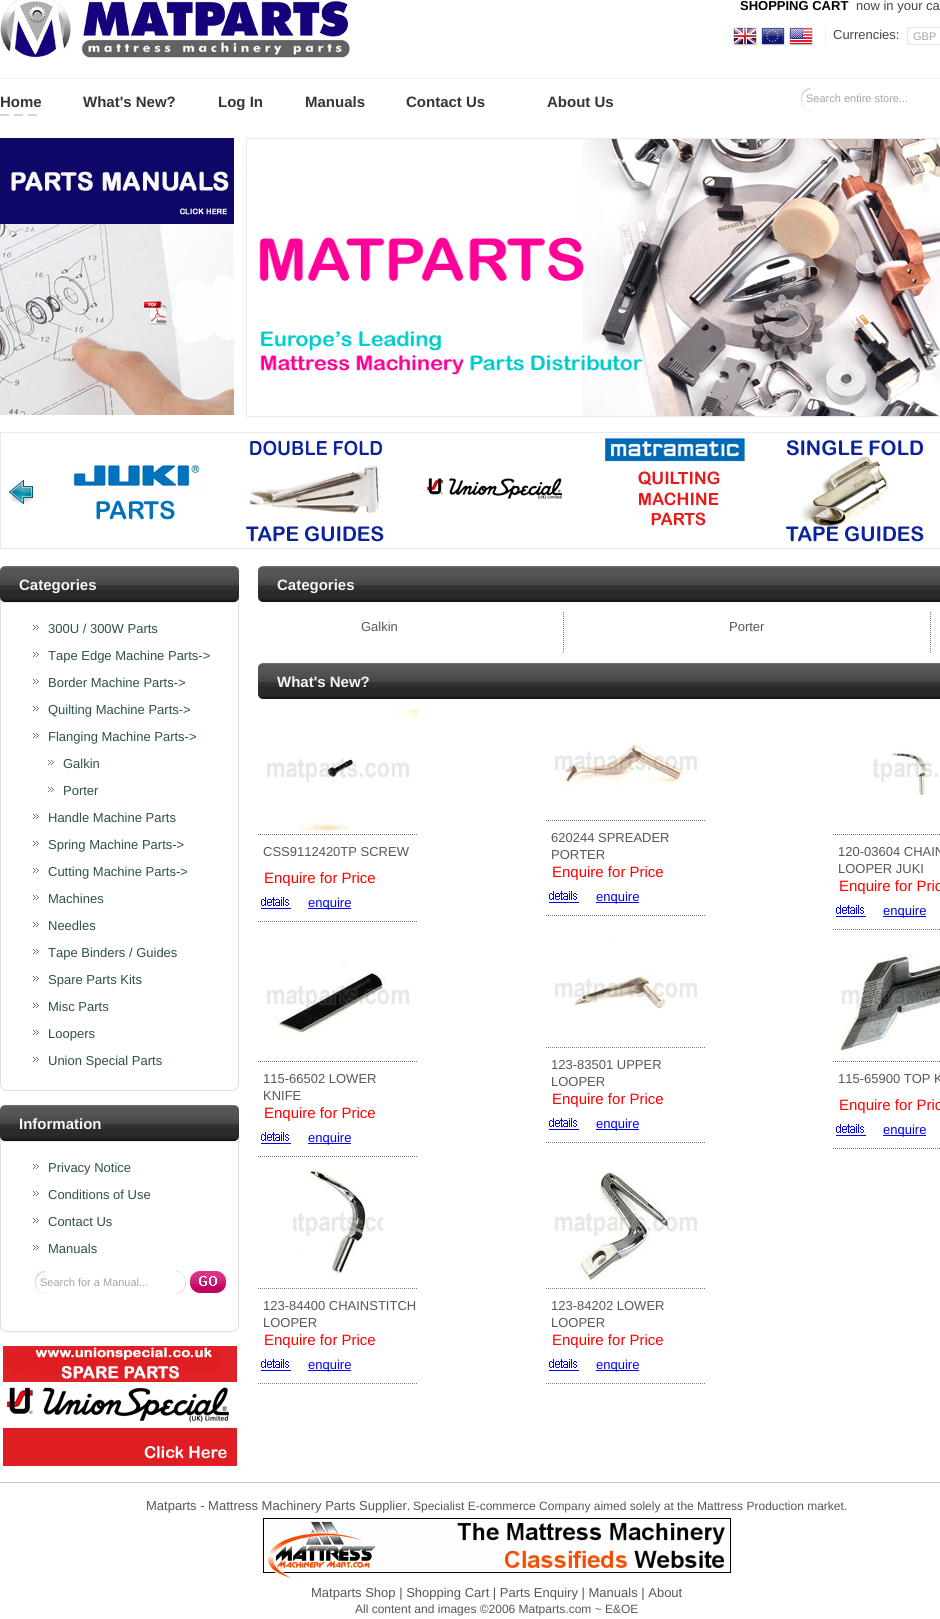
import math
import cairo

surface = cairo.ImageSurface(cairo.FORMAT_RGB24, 940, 1619)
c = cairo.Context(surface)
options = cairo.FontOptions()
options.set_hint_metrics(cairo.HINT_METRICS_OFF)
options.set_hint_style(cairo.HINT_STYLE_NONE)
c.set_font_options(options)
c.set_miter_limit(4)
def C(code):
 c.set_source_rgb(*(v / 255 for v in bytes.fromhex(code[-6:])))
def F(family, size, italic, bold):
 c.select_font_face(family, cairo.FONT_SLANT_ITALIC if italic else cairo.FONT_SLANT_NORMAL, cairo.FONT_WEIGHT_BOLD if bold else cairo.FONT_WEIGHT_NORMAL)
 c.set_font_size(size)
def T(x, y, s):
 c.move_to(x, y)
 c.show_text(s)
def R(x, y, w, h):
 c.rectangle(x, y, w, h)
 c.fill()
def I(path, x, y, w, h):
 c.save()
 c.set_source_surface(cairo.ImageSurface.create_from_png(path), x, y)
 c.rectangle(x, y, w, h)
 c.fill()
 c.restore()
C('ffffff')
c.paint()
C('f3f3f3')
R(0,78,940,1)
I('1.png',0,0,350,58)
F('Liberation Sans',13,0,1)
C('000000')
T(740,10,'SHOPPING CART')
F('Liberation Sans',13,0,0)
C('464545')
T(856,10,'now in your ca')
I('2.png',733,27,24,19)
I('3.png',761,27,24,19)
I('4.png',789,27,24,19)
I('5.png',825,28,1,17)
T(833,39,'Currencies:')
c.rectangle(907.5,27.5,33,17)
C('e8e8e7')
c.set_line_width(1)
c.stroke()
F('Liberation Sans',11,0,0)
C('a4a4a4')
T(913,40,'GBP')
I('6.png',0,114,37,2)
F('Liberation Sans',15,0,1)
C('353535')
T(0,107,'Home')
T(83,107,'What\'s New?')
T(218,107,'Log In')
T(305,107,'Manuals')
T(406,107,'Contact Us')
T(547,107,'About Us')
I('7.png',801,88,10,23)
F('Liberation Sans',11,0,0)
C('a4a4a4')
T(806,102,'Search entire store...')
I('8.png',0,138,234,277)
c.rectangle(246.5,138.5,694,278)
C('e7eaef')
c.stroke()
I('9.png',259,139,681,277)
c.rectangle(.5,432.5,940,116)
c.stroke()
I('10.png',9,480,25,24)
I('11.png',72,465,130,55)
I('12.png',246,440,138,102)
I('13.png',426,478,137,22)
I('14.png',605,438,140,88)
I('15.png',786,440,138,102)
I('16.png',0,566,5,5)
I('17.png',234,566,5,5)
I('18.png',5,566,229,5)
C('2a2a2a')
R(0,590,239,7)
I('19.png',0,571,239,19)
F('Liberation Sans',15,0,1)
C('f5f6f0')
T(19,590,'Categories')
I('20.png',0,597,5,5)
I('21.png',234,597,5,5)
I('22.png',5,597,229,5)
C('dfdfdf')
R(0,1090,239,1)
C('e7eaef')
R(0,602,239,1)
C('dfdfdf')
R(238,603,1,487)
R(0,603,1,487)
I('23.png',0,1085,6,6)
I('24.png',234,1085,5,6)
I('25.png',33,625,6,5)
F('Liberation Sans',13,0,0)
C('2f4f4f')
T(48,633,'300U / 300W Parts')
I('25.png',33,652,6,5)
T(48,660,'Tape Edge Machine Parts->')
I('25.png',33,679,6,5)
T(48,687,'Border Machine Parts->')
I('25.png',33,706,6,5)
T(48,714,'Quilting Machine Parts->')
I('25.png',33,733,6,5)
T(48,741,'Flanging Machine Parts->')
I('25.png',48,760,6,5)
T(63,768,'Galkin')
I('25.png',48,787,6,5)
T(63,795,'Porter')
I('25.png',33,814,6,5)
T(48,822,'Handle Machine Parts')
I('25.png',33,841,6,5)
T(48,849,'Spring Machine Parts->')
I('25.png',33,868,6,5)
T(48,876,'Cutting Machine Parts->')
I('25.png',33,895,6,5)
T(48,903,'Machines')
I('25.png',33,922,6,5)
T(48,930,'Needles')
I('25.png',33,949,6,5)
T(48,957,'Tape Binders / Guides')
I('25.png',33,976,6,5)
T(48,984,'Spare Parts Kits')
I('25.png',33,1003,6,5)
T(48,1011,'Misc Parts')
I('25.png',33,1030,6,5)
T(48,1038,'Loopers')
I('25.png',33,1057,6,5)
T(48,1065,'Union Special Parts')
I('16.png',0,1105,5,5)
I('17.png',234,1105,5,5)
I('18.png',5,1105,229,5)
C('2a2a2a')
R(0,1129,239,7)
I('19.png',0,1110,239,19)
F('Liberation Sans',15,0,1)
C('f5f6f0')
T(19,1129,'Information')
I('20.png',0,1136,5,5)
I('21.png',234,1136,5,5)
I('22.png',5,1136,229,5)
C('dfdfdf')
R(0,1331,239,1)
C('e7eaef')
R(0,1141,239,1)
C('dfdfdf')
R(238,1142,1,189)
R(0,1142,1,189)
I('23.png',0,1326,6,6)
I('24.png',234,1326,5,6)
I('25.png',33,1164,6,5)
F('Liberation Sans',13,0,0)
C('2f4f4f')
T(48,1172,'Privacy Notice')
I('25.png',33,1191,6,5)
T(48,1199,'Conditions of Use')
I('25.png',33,1218,6,5)
T(48,1226,'Contact Us')
I('25.png',33,1245,6,5)
T(48,1253,'Manuals')
I('7.png',35,1271,10,23)
I('26.png',176,1271,10,23)
F('Liberation Sans',11,0,0)
C('a4a4a4')
T(40,1286,'Search for a Manual...')
I('27.png',199,1271,18,22)
I('28.png',190,1271,9,22)
I('29.png',217,1271,9,22)
I('30.png',199,1276,18,10)
I('31.png',3,1346,234,120)
I('16.png',258,566,5,5)
I('32.png',263,566,677,5)
C('2a2a2a')
R(258,590,682,7)
I('33.png',258,571,682,19)
F('Liberation Sans',15,0,1)
C('f5f6f0')
T(277,590,'Categories')
I('34.png',258,597,5,5)
I('35.png',263,597,677,5)
F('Liberation Sans',13,0,0)
C('5a5656')
T(361,631,'Galkin')
I('36.png',563,612,1,41)
T(729,631,'Porter')
I('36.png',930,612,1,41)
I('16.png',258,663,5,5)
I('32.png',263,663,677,5)
C('2a2a2a')
R(258,687,682,7)
I('33.png',258,668,682,19)
F('Liberation Sans',15,0,1)
C('f5f6f0')
T(277,687,'What\'s New?')
I('34.png',258,694,5,5)
I('35.png',263,694,677,5)
I('37.png',258,834,159,1)
I('38.png',267,710,151,120)
F('Liberation Sans',13,0,0)
C('5a5656')
T(263,856,'CSS9112420TP SCREW')
F('Liberation Sans',15,0,0)
C('ff0000')
T(264,883,'Enquire for Price')
I('37.png',258,921,159,1)
I('39.png',261,897,30,12)
C('0000ff')
R(308,908,43,1)
F('Liberation Sans',13,0,0)
T(308,907,'enquire')
I('37.png',546,820,159,1)
I('40.png',555,742,142,46)
C('5a5656')
T(551,842,'620244 SPREADER')
T(551,859,'PORTER')
F('Liberation Sans',15,0,0)
C('ff0000')
T(552,877,'Enquire for Price')
I('37.png',546,915,159,1)
I('39.png',549,891,30,12)
C('0000ff')
R(596,902,43,1)
F('Liberation Sans',13,0,0)
T(596,901,'enquire')
I('41.png',833,834,107,1)
I('42.png',873,750,66,47)
C('5a5656')
T(838,856,'120-03604 CHAIN')
T(838,873,'LOOPER JUKI')
F('Liberation Sans',15,0,0)
C('ff0000')
T(839,891,'Enquire for Pric')
I('41.png',833,929,107,1)
I('39.png',836,905,30,12)
C('0000ff')
R(883,916,43,1)
F('Liberation Sans',13,0,0)
T(883,915,'enquire')
I('37.png',258,1061,159,1)
I('43.png',266,958,144,93)
C('5a5656')
T(263,1083,'115-66502 LOWER')
T(263,1100,'KNIFE')
F('Liberation Sans',15,0,0)
C('ff0000')
T(264,1118,'Enquire for Price')
I('37.png',258,1156,159,1)
I('39.png',261,1132,30,12)
C('0000ff')
R(308,1143,43,1)
F('Liberation Sans',13,0,0)
T(308,1142,'enquire')
I('37.png',546,1047,159,1)
I('44.png',555,939,142,72)
C('5a5656')
T(551,1069,'123-83501 UPPER')
T(551,1086,'LOOPER')
F('Liberation Sans',15,0,0)
C('ff0000')
T(552,1104,'Enquire for Price')
I('37.png',546,1142,159,1)
I('39.png',549,1118,30,12)
C('0000ff')
R(596,1129,43,1)
F('Liberation Sans',13,0,0)
T(596,1128,'enquire')
I('41.png',833,1061,107,1)
I('45.png',833,953,107,104)
C('5a5656')
T(838,1083,'115-65900 TOP K')
F('Liberation Sans',15,0,0)
C('ff0000')
T(839,1110,'Enquire for Pric')
I('41.png',833,1148,107,1)
I('39.png',836,1124,30,12)
C('0000ff')
R(883,1135,43,1)
F('Liberation Sans',13,0,0)
T(883,1134,'enquire')
I('37.png',258,1288,159,1)
I('46.png',293,1164,90,112)
C('5a5656')
T(263,1310,'123-84400 CHAINSTITCH')
T(263,1327,'LOOPER')
F('Liberation Sans',15,0,0)
C('ff0000')
T(264,1345,'Enquire for Price')
I('37.png',258,1383,159,1)
I('39.png',261,1359,30,12)
C('0000ff')
R(308,1370,43,1)
F('Liberation Sans',13,0,0)
T(308,1369,'enquire')
I('37.png',546,1288,159,1)
I('47.png',554,1172,144,112)
C('5a5656')
T(551,1310,'123-84202 LOWER')
T(551,1327,'LOOPER')
F('Liberation Sans',15,0,0)
C('ff0000')
T(552,1345,'Enquire for Price')
I('37.png',546,1383,159,1)
I('39.png',549,1359,30,12)
C('0000ff')
R(596,1370,43,1)
F('Liberation Sans',13,0,0)
T(596,1369,'enquire')
C('cdcccc')
R(0,1482,940,1)
C('5a5656')
T(146,1510,'Matparts - Mattress Machinery Parts Supplier.')
F('Liberation Sans',12,0,0)
T(413,1510,'Specialist E-commerce Company aimed solely at the Mattress Production market.')
I('48.png',263,1518,468,60)
F('Liberation Sans',13,0,0)
T(311,1597,'Matparts Shop | Shopping Cart | Parts Enquiry | Manuals | About')
F('Liberation Sans',12,0,0)
T(355,1613,'All content and images ©2006 Matparts.com ~ E&OE')
surface.write_to_png('o.png')
